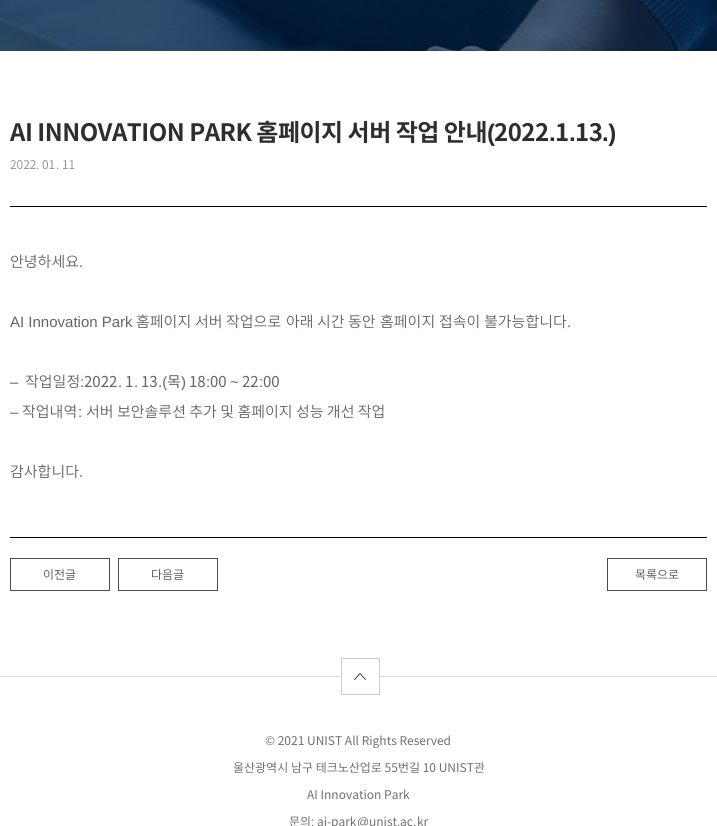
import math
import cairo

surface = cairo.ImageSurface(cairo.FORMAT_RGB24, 717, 826)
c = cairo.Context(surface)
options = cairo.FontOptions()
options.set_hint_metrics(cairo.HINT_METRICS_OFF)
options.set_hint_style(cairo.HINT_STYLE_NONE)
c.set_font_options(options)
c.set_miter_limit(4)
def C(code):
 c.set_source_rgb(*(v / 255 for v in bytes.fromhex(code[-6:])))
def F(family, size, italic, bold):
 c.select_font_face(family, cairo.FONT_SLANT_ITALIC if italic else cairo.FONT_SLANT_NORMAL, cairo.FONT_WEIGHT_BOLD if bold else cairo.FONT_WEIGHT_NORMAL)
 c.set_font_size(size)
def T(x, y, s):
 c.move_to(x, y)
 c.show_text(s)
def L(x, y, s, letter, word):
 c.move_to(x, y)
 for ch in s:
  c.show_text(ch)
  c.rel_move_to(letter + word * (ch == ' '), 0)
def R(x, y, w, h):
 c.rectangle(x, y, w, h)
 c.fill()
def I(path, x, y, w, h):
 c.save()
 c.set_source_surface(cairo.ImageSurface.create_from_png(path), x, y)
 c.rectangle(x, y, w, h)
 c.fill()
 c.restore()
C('ffffff')
c.paint()
I('1.png',0,0,717,51)
C('000000')
R(10,206,697,1)
F('Noto Sans CJK KR',24,0,1)
C('2e2e2e')
L(10,141,'AI INNOVATION PARK 홈페이지 서버 작업 안내',-.5,0)
F('Liberation Sans',24,0,1)
L(487,141,'(',-.5,0)
F('Noto Sans CJK KR',24,0,1)
L(494,141,'2022',-.5,0)
F('Liberation Sans',24,0,1)
L(549,141,'.',-.5,0)
F('Noto Sans CJK KR',24,0,1)
L(555,141,'1',-.5,0)
F('Liberation Sans',24,0,1)
L(569,141,'.',-.5,0)
F('Noto Sans CJK KR',24,0,1)
L(575,141,'13',-.5,0)
F('Liberation Sans',24,0,1)
L(602,141,'.)',-.5,0)
F('Noto Sans CJK KR Light',12,0,0)
C('8c8c8c')
T(10,169,'2022')
F('Liberation Sans',12,0,0)
T(36,169,'.')
F('Noto Sans CJK KR Light',12,0,0)
T(42,169,'01')
F('Liberation Sans',12,0,0)
T(56,169,'.')
F('Noto Sans CJK KR Light',12,0,0)
T(62,169,'11')
C('000000')
R(10,537,697,1)
F('Noto Sans CJK KR Light',15,0,0)
C('646464')
T(10,267,'안녕하세요')
F('Liberation Sans',15,0,0)
T(79,267,'.')
T(10,327,'AI Innovation Park')
F('Noto Sans CJK KR Light',15,0,0)
T(136,327,'홈페이지')
T(195,327,'서버')
T(226,327,'작업으로')
T(286,327,'아래')
T(317,327,'시간')
T(348,327,'동안')
T(380,327,'홈페이지')
T(439,327,'접속이')
T(484,327,'불가능합니다')
F('Liberation Sans',15,0,0)
T(567,327,'.')
T(10,387,'–')
F('Noto Sans CJK KR Light',15,0,0)
T(25,387,'작업일정')
F('Liberation Sans',15,0,0)
T(80,387,':')
F('Noto Sans CJK KR',15,0,0)
T(84,387,'2022')
T(125,387,'1')
T(141,387,'13')
F('Liberation Sans',15,0,0)
T(158,387,'.(')
F('Noto Sans CJK KR',15,0,0)
T(167,387,'목')
F('Liberation Sans',15,0,0)
T(181,387,')')
F('Noto Sans CJK KR',15,0,0)
T(189,387,'18')
F('Liberation Sans',15,0,0)
T(206,387,':')
F('Noto Sans CJK KR',15,0,0)
T(210,387,'00')
F('Liberation Sans',15,0,0)
T(230,387,'~')
F('Noto Sans CJK KR',15,0,0)
T(242,387,'22')
F('Liberation Sans',15,0,0)
T(259,387,':')
F('Noto Sans CJK KR',15,0,0)
T(263,387,'00')
F('Liberation Sans',15,0,0)
T(118,387,'.')
T(134,387,'.')
T(10,417,'–')
F('Noto Sans CJK KR Light',15,0,0)
T(22,417,'작업내역')
F('Liberation Sans',15,0,0)
T(78,417,':')
F('Noto Sans CJK KR Light',15,0,0)
T(86,417,'서버 보안솔루션 추가 및 홈페이지 성능 개선 작업')
T(10,477,'감사합니다')
F('Liberation Sans',15,0,0)
T(79,477,'.')
c.rectangle(10.5,558.5,99,32)
C('4c4c4c')
c.set_line_width(1)
c.stroke()
F('Noto Sans CJK KR Light',12,0,0)
C('4f4f4f')
T(43,579,'이전글')
c.rectangle(118.5,558.5,99,32)
C('4c4c4c')
c.stroke()
C('4f4f4f')
T(151,579,'다음글')
c.rectangle(607.5,558.5,99,32)
C('4c4c4c')
c.stroke()
C('4f4f4f')
T(635,579,'목록으로')
C('dedede')
R(0,676,717,1)
C('ffffff')
R(342,676,37,1)
I('2.png',354,673,12,7)
c.rectangle(341.5,658.5,38,36)
C('cccccc')
c.stroke()
F('Noto Sans CJK KR',12,0,0)
C('707070')
T(265,745,'© 2021 UNIST All Rights Reserved')
T(233,772,'울산광역시 남구 테크노산업로 55번길 10 UNIST관')
T(307,799,'AI Innovation Park')
T(289,826,'문의')
F('Liberation Sans',12,0,0)
T(311,826,':')
F('Noto Sans CJK KR',12,0,0)
T(317,826,'ai')
F('Liberation Sans',12,0,0)
T(327,826,'-')
F('Noto Sans CJK KR',12,0,0)
T(331,826,'park')
F('Liberation Sans',12,0,0)
T(357,826,'@')
F('Noto Sans CJK KR',12,0,0)
T(369,826,'unist')
T(400,826,'ac')
T(417,826,'kr')
F('Liberation Sans',12,0,0)
T(397,826,'.')
T(413,826,'.')
surface.write_to_png('o.png')
